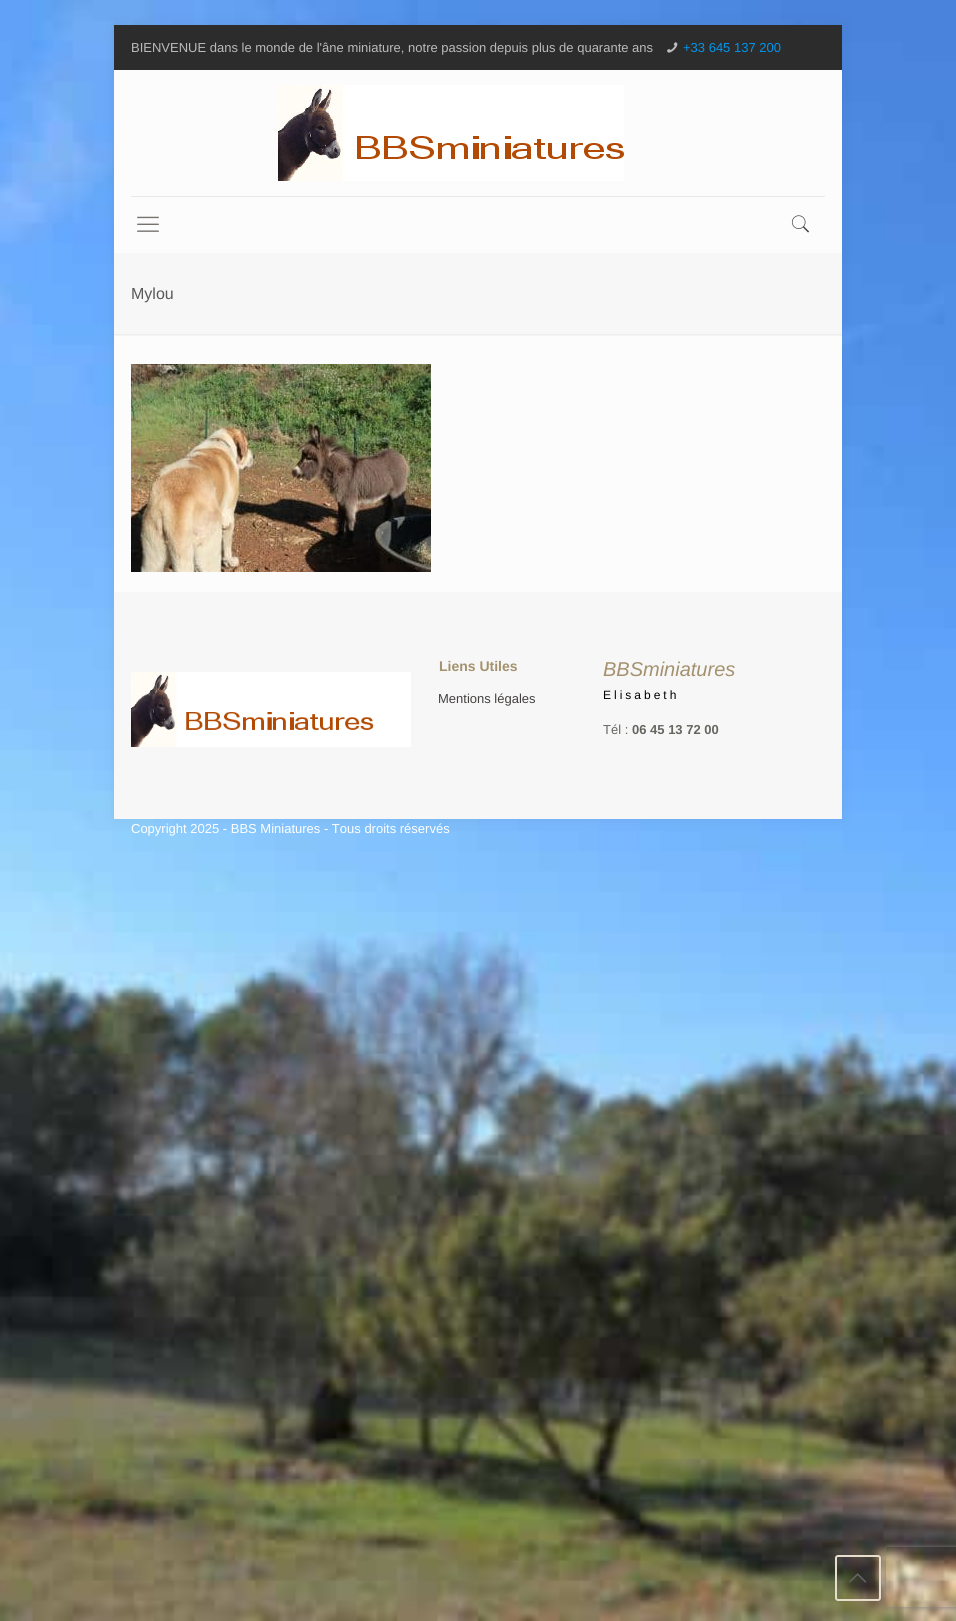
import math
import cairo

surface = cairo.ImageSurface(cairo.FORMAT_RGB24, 956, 1621)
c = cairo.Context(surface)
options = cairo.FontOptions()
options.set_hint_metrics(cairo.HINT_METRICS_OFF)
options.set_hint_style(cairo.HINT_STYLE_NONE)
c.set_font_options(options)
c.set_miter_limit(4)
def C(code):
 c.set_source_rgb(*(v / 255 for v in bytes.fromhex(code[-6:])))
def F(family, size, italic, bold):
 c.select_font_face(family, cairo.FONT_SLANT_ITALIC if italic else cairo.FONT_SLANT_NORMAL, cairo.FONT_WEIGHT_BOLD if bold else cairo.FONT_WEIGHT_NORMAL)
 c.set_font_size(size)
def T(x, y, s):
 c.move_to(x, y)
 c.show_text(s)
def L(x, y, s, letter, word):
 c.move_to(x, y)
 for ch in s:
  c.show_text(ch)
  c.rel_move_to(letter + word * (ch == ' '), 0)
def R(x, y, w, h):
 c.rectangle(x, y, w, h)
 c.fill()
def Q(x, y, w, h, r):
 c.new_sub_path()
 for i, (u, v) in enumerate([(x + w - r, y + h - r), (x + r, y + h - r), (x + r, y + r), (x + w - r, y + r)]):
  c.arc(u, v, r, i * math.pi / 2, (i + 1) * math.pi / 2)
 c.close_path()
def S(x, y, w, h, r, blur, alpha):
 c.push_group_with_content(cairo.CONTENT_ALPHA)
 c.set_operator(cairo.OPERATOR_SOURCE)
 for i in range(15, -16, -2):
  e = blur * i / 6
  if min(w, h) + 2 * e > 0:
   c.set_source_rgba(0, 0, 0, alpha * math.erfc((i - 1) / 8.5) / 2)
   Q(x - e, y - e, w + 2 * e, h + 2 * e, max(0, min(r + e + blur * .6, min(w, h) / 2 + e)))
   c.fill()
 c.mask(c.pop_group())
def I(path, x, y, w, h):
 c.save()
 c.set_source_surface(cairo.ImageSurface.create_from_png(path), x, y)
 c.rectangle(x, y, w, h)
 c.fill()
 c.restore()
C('ffffff')
c.paint()
I('1.png',0,0,956,1621)
C('000000')
S(114,25,728,794,0,7.5,.06)
C('fcfcfc')
R(114,334,728,258)
C('2c2c2c')
R(114,25,728,45)
F('Liberation Sans',13,0,0)
C('bbbbbb')
T(131,52,'BIENVENUE dans le monde de l\'âne miniature, notre passion depuis plus de quarante ans')
I('2.png',667,42,11,11)
C('0095eb')
T(683,52,'+33 645 137 200')
C('fcfcfc')
R(114,70,728,183)
C('e8e8e8')
R(131,196,694,1)
I('3.png',278,85,346,96)
I('4.png',137,216,22,16)
I('5.png',791,215,19,18)
C('f7f7f7')
R(114,253,728,81)
F('Liberation Sans',16,0,0)
C('585858')
T(131,299,'Mylou')
I('6.png',114,334,728,2)
I('7.png',131,364,300,208)
C('f7f7f7')
R(114,592,728,227)
I('8.png',131,672,280,75)
F('Liberation Sans',14,0,1)
C('a4916d')
T(439,671,'Liens Utiles')
F('Liberation Sans',13,0,0)
C('444040')
T(438,703,'Mentions légales')
F('Liberation Sans',20,1,0)
C('a4916d')
T(603,676,'BBSminiatures')
F('Liberation Sans',12,0,0)
C('000000')
L(603,699,'Elisabeth',3,0)
F('Liberation Sans',13,0,0)
C('646660')
T(603,734,'Tél :')
F('Liberation Sans',13,0,1)
T(632,734,'06 45 13 72 00')
F('Liberation Sans',13,0,0)
C('ffffff')
T(131,833,'Copyright 2025 - BBS Miniatures - Tous droits réservés')
c.save()
c.set_fill_rule(cairo.FILL_RULE_EVEN_ODD)
c.new_path()
c.move_to(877,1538)
c.line_to(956,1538)
c.line_to(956,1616)
c.line_to(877,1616)
c.close_path()
c.move_to(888,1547)
c.line_to(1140,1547)
c.curve_to(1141,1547,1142,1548,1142,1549)
c.line_to(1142,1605)
c.curve_to(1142,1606,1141,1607,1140,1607)
c.line_to(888,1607)
c.curve_to(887,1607,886,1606,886,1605)
c.line_to(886,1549)
c.curve_to(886,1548,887,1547,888,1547)
c.close_path()
c.clip()
C('808080')
S(886,1547,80,60,2,2.5,1)
c.restore()
Q(836,1556,44,44,2)
C('e7dece')
c.stroke()
I('9.png',849,1573,18,10)
surface.write_to_png('o.png')
